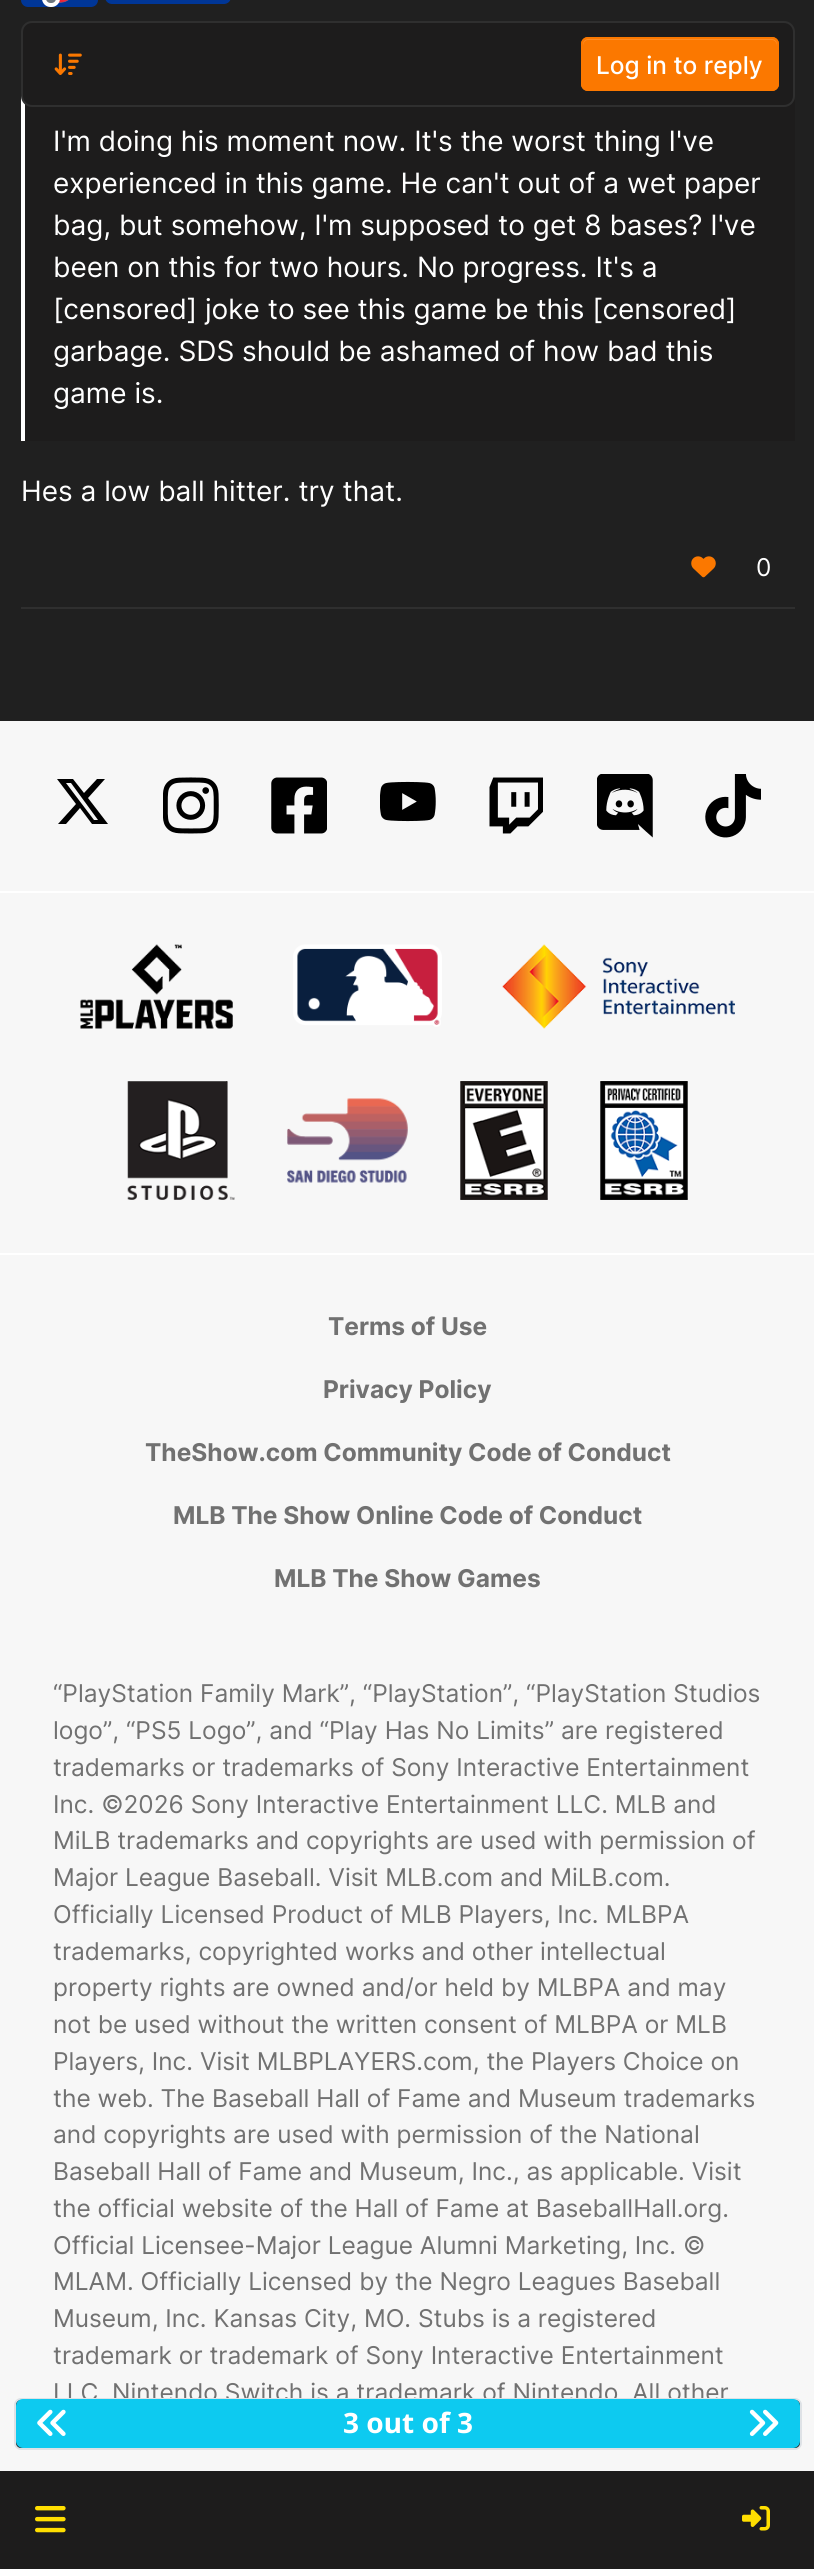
import math
import cairo

surface = cairo.ImageSurface(cairo.FORMAT_RGB24, 814, 2569)
c = cairo.Context(surface)
options = cairo.FontOptions()
options.set_hint_metrics(cairo.HINT_METRICS_OFF)
options.set_hint_style(cairo.HINT_STYLE_NONE)
c.set_font_options(options)
c.set_miter_limit(4)
def C(code):
 c.set_source_rgb(*(v / 255 for v in bytes.fromhex(code[-6:])))
def F(family, size, italic, bold):
 c.select_font_face(family, cairo.FONT_SLANT_ITALIC if italic else cairo.FONT_SLANT_NORMAL, cairo.FONT_WEIGHT_BOLD if bold else cairo.FONT_WEIGHT_NORMAL)
 c.set_font_size(size)
def T(x, y, s):
 c.move_to(x, y)
 c.show_text(s)
def R(x, y, w, h):
 c.rectangle(x, y, w, h)
 c.fill()
def Q(x, y, w, h, r):
 c.new_sub_path()
 for i, (u, v) in enumerate([(x + w - r, y + h - r), (x + r, y + h - r), (x + r, y + r), (x + w - r, y + r)]):
  c.arc(u, v, r, i * math.pi / 2, (i + 1) * math.pi / 2)
 c.close_path()
def I(path, x, y, w, h):
 c.save()
 c.set_source_surface(cairo.ImageSurface.create_from_png(path), x, y)
 c.rectangle(x, y, w, h)
 c.fill()
 c.restore()
C('202020')
c.paint()
C('1d1c1c')
R(25,96,770,345)
C('ffffff')
R(21,91,4,350)
C('1d1c1c')
Q(22,22,772,84,10)
c.fill_preserve()
C('2f2f2f')
c.stroke()
I('1.png',54,53,28,22)
C('fb7800')
Q(581,37,198,54,7)
c.fill()
C('fc8c26')
c.new_path()
c.move_to(588,40)
c.line_to(772,40)
c.curve_to(775,40,777,43,777,46)
c.line_to(777,44)
c.curve_to(777,41,775,39,772,39)
c.line_to(588,39)
c.curve_to(585,39,583,41,583,44)
c.line_to(583,46)
c.curve_to(583,43,585,40,588,40)
c.close_path()
c.fill()
Q(582,38,196,52,6)
C('fb7800')
c.stroke()
F('Inter Medium',24.5,0,0)
C('ffffff')
T(596,74,'Log in to reply')
C('003697')
Q(21,-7,77,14,7)
c.fill()
I('2.png',58,0,11,3)
C('6c757d')
Q(44,-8,14,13,6.5)
c.fill_preserve()
C('ffffff')
c.set_line_width(4)
c.stroke()
C('003697')
Q(105,-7,126,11,7)
c.fill()
F('Inter',28,0,0)
C('ffffff')
T(53,151,'I\'m doing his moment now. It\'s the worst thing I\'ve')
T(53,193,'experienced in this game. He can\'t out of a wet paper')
T(53,235,'bag, but somehow, I\'m supposed to get 8 bases? I\'ve')
T(53,277,'been on this for two hours. No progress. It\'s a')
T(53,319,'[censored] joke to see this game be this [censored]')
T(53,361,'garbage. SDS should be ashamed of how bad this')
T(53,403,'game is.')
T(21,501,'Hes a low ball hitter. try that.')
C('2f2f2f')
R(21,607,774,2)
I('3.png',691,556,25,22)
F('Inter',24.5,0,0)
C('ffffff')
T(756,576,'0')
C('f7f7f7')
R(0,721,814,1750)
C('ffffff')
R(0,891,814,2)
C('000000')
c.new_path()
c.move_to(97,779)
c.line_to(105,779)
c.line_to(88,798)
c.line_to(108,824)
c.line_to(92,824)
c.line_to(80,808)
c.line_to(66,824)
c.line_to(58,824)
c.line_to(76,804)
c.line_to(57,779)
c.line_to(73,779)
c.line_to(84,793)
c.close_path()
c.move_to(94,820)
c.line_to(98,820)
c.line_to(71,783)
c.line_to(66,783)
c.close_path()
c.fill()
I('4.png',163,777,56,57)
I('5.png',271,777,56,57)
I('6.png',380,781,56,41)
I('7.png',489,777,54,57)
I('8.png',597,774,56,64)
I('9.png',705,774,56,64)
C('ffffff')
R(0,1253,814,2)
I('10.png',80,944,153,85)
I('11.png',293,944,149,83)
I('12.png',502,944,233,85)
I('13.png',127,1081,108,119)
I('14.png',287,1098,121,85)
I('15.png',460,1081,88,119)
I('16.png',600,1081,88,119)
F('Inter',24.5,0,1)
C('717171')
T(328,1335,'Terms of Use')
T(323,1398,'Privacy Policy')
T(145,1461,'TheShow.com Community Code of Conduct')
T(173,1524,'MLB The Show Online Code of Conduct')
T(274,1587,'MLB The Show Games')
F('Inter',24.5,0,0)
T(53,1702,'“PlayStation Family Mark”, “PlayStation”, “PlayStation Studios')
T(53,1739,'logo”, “PS5 Logo”, and “Play Has No Limits” are registered')
T(53,1776,'trademarks or trademarks of Sony Interactive Entertainment')
T(53,1813,'Inc. ©2026 Sony Interactive Entertainment LLC. MLB and')
T(53,1849,'MiLB trademarks and copyrights are used with permission of')
T(53,1886,'Major League Baseball. Visit MLB.com and MiLB.com.')
T(53,1923,'Officially Licensed Product of MLB Players, Inc. MLBPA')
T(53,1960,'trademarks, copyrighted works and other intellectual')
T(53,1996,'property rights are owned and/or held by MLBPA and may')
T(53,2033,'not be used without the written consent of MLBPA or MLB')
T(53,2070,'Players, Inc. Visit MLBPLAYERS.com, the Players Choice on')
T(53,2107,'the web. The Baseball Hall of Fame and Museum trademarks')
T(53,2143,'and copyrights are used with permission of the National')
T(53,2180,'Baseball Hall of Fame and Museum, Inc., as applicable. Visit')
T(53,2217,'the official website of the Hall of Fame at BaseballHall.org.')
T(53,2254,'Official Licensee-Major League Alumni Marketing, Inc. ©')
T(53,2290,'MLAM. Officially Licensed by the Negro Leagues Baseball')
T(53,2327,'Museum, Inc. Kansas City, MO. Stubs is a registered')
T(53,2364,'trademark or trademark of Sony Interactive Entertainment')
T(53,2401,'LLC. Nintendo Switch is a trademark of Nintendo. All other')
C('1d1c1c')
Q(15,2399,786,50,6)
c.fill_preserve()
C('dee2e6')
c.set_line_width(2)
c.stroke()
C('0dcaf0')
Q(16,2399,784,49,7)
c.fill()
I('17.png',37,2409,29,27)
F('Noto Sans',28,0,1)
C('ffffff')
T(343,2433,'3 out of 3')
I('18.png',749,2409,30,27)
C('1d1c1c')
R(0,2471,814,98)
I('19.png',35,2506,31,27)
I('20.png',742,2506,28,25)
surface.write_to_png('o.png')
